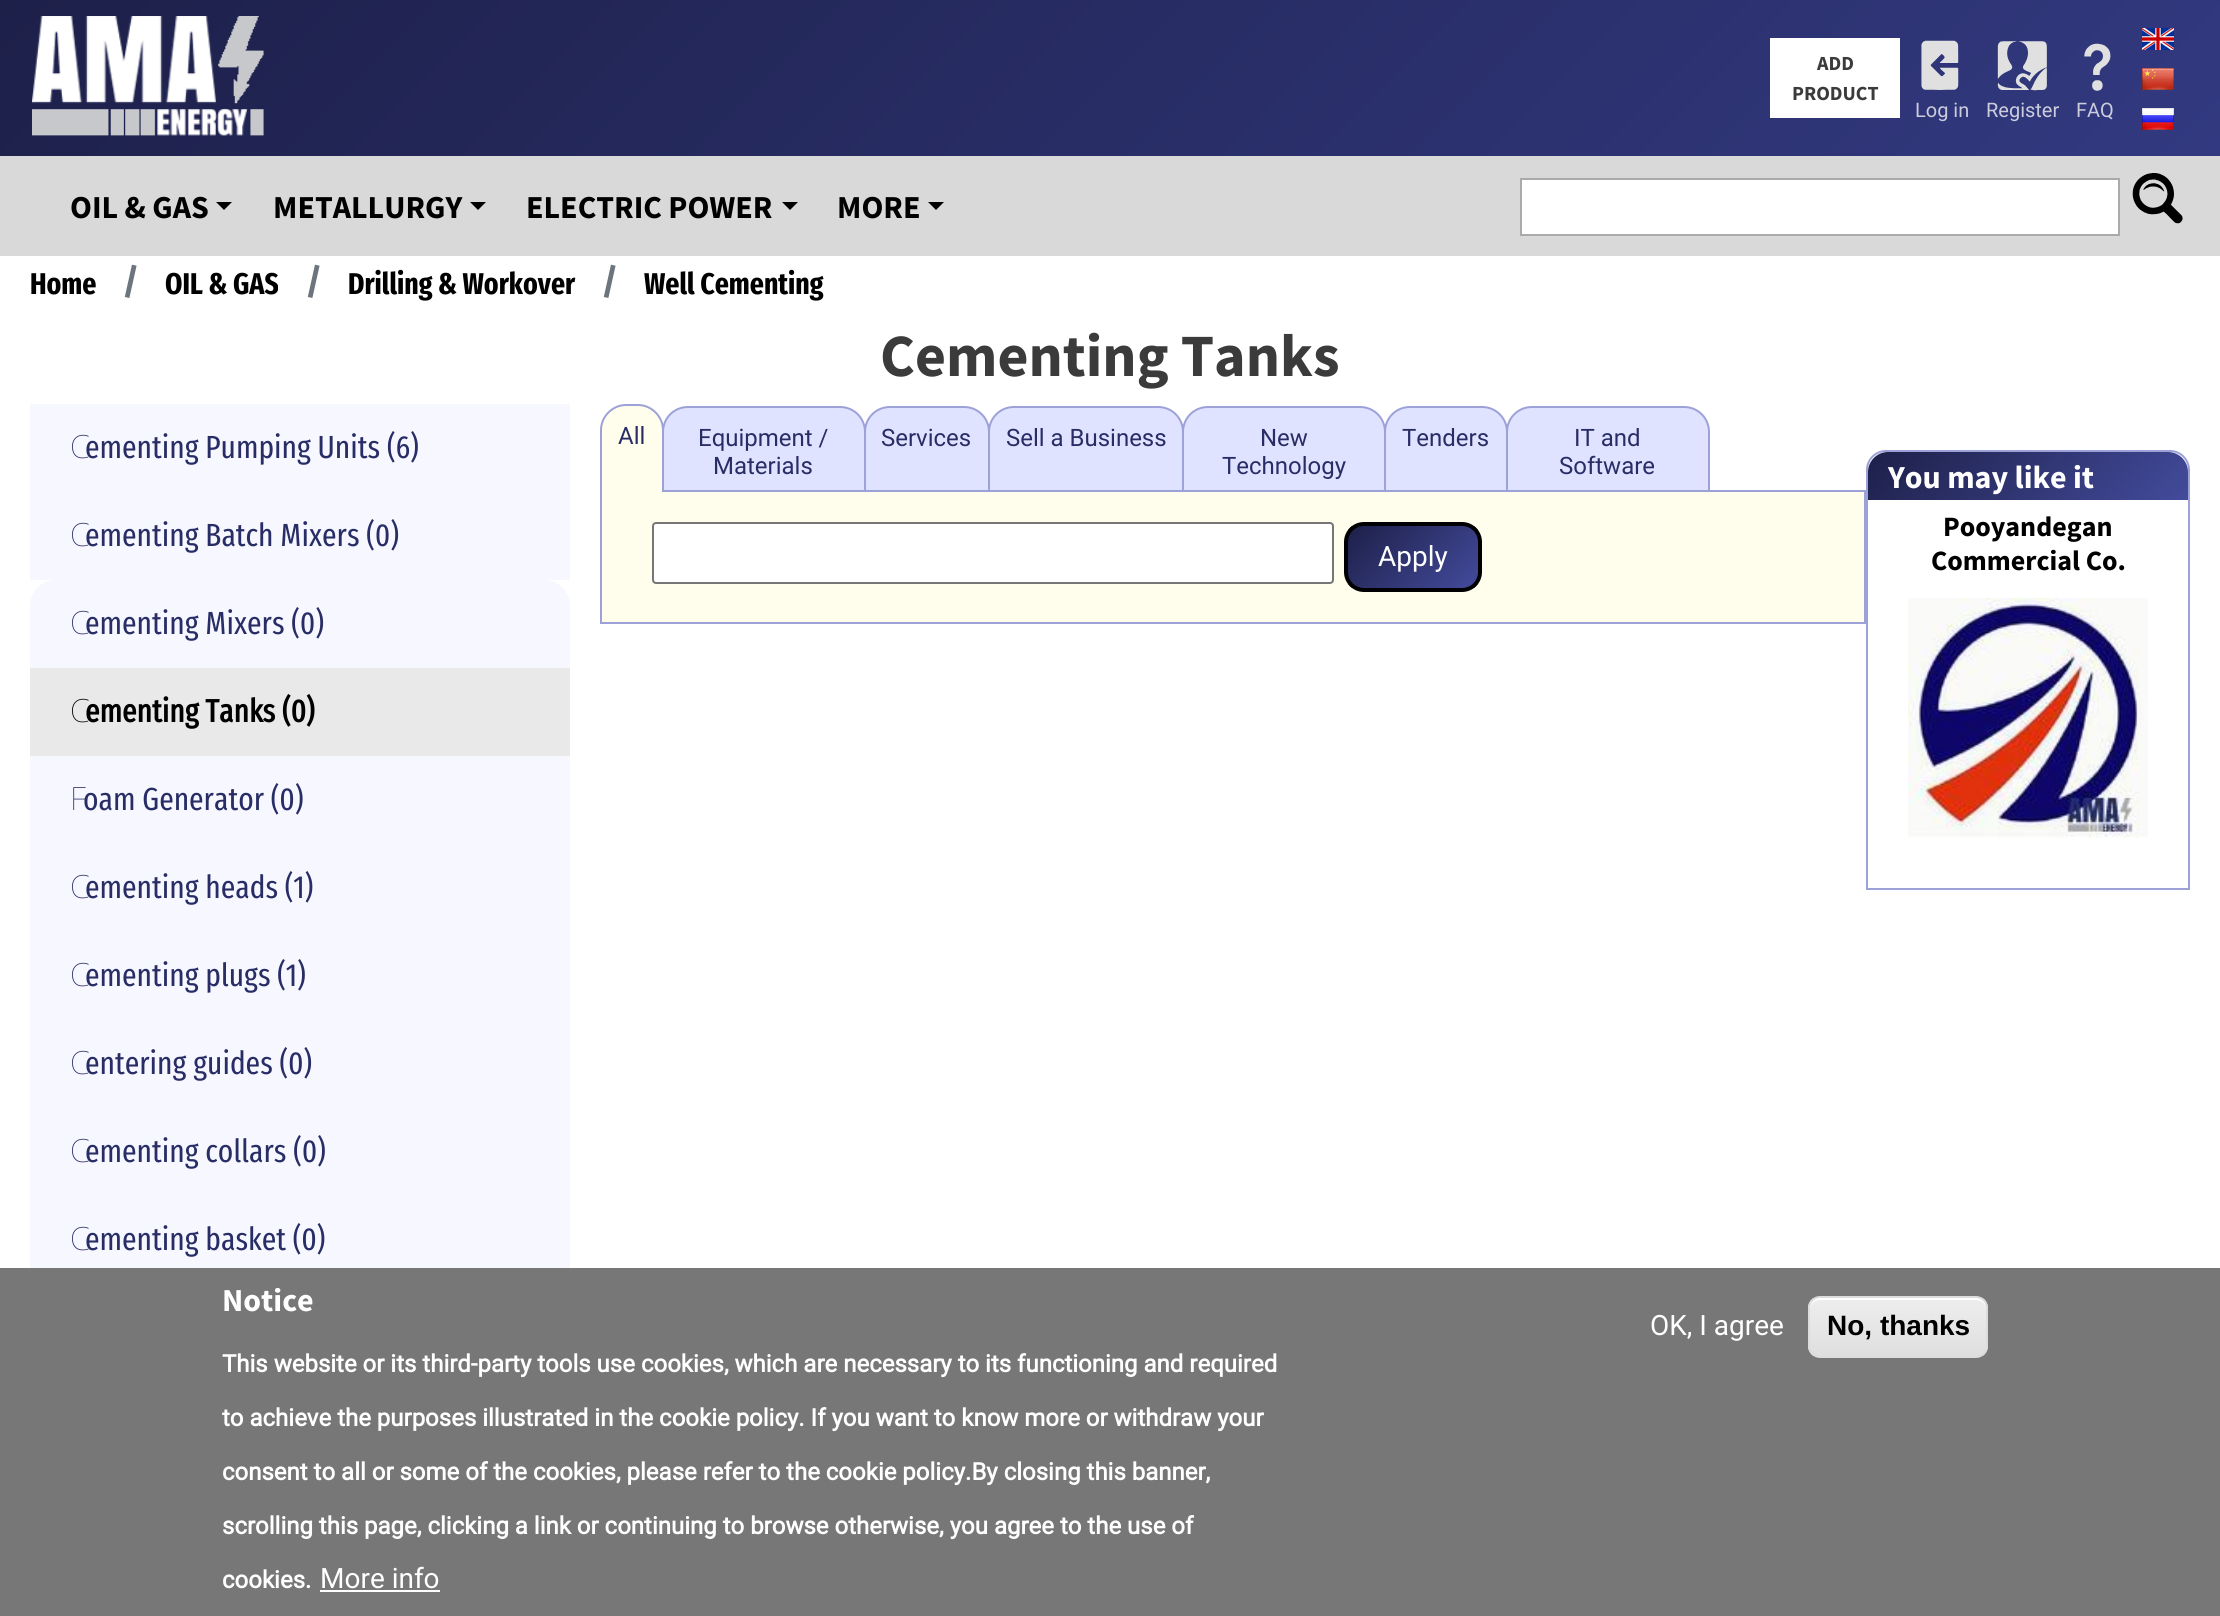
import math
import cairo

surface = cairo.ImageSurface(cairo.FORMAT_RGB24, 2220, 1616)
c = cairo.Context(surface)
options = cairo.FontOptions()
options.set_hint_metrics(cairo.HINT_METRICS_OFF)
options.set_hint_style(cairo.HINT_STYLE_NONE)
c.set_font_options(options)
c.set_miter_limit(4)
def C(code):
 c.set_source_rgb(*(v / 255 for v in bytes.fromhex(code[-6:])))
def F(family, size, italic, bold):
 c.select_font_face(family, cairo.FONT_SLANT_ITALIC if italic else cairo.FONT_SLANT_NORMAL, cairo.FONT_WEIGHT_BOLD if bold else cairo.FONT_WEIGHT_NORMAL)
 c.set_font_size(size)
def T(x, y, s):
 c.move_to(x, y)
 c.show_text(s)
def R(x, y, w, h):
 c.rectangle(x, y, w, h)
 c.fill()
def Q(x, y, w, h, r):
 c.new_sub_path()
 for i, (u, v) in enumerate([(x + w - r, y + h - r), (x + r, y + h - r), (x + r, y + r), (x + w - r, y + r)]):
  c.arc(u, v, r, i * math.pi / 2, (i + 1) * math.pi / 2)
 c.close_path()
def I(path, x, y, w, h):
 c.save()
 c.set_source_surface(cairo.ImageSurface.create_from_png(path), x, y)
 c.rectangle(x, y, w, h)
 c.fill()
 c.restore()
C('ffffff')
c.paint()
gradient = cairo.LinearGradient(1704,672,516,-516)
gradient.add_color_stop_rgba(0,0.196,0.224,0.502,1)
gradient.add_color_stop_rgba(1,0.114,0.125,0.286,1)
c.set_source(gradient)
R(0,0,2220,156)
I('1.png',32,16,232,120)
C('ffffff')
R(1770,38,130,80)
F('Source Sans Pro',20,0,1)
C('3b3b3b')
T(1817,70,'ADD')
T(1792,100,'PRODUCT')
I('2.png',2142,28,32,22)
I('3.png',2142,68,32,22)
I('4.png',2142,108,32,22)
I('5.png',1921,40,38,50)
F('Roboto',20,0,0)
C('cbcddd')
T(1915,117,'Log in')
I('6.png',1997,41,50,50)
T(1986,117,'Register')
I('7.png',2084,43,27,48)
T(2076,117,'FAQ')
C('d9d9d9')
R(0,156,2220,100)
F('Source Sans Pro',32,0,1)
C('000000')
T(70,218,'OIL & GAS')
c.new_path()
c.move_to(216,202)
c.line_to(232,202)
c.line_to(224,210)
c.close_path()
c.fill()
T(273,218,'METALLURGY')
c.new_path()
c.move_to(470,202)
c.line_to(486,202)
c.line_to(478,210)
c.close_path()
c.fill()
T(526,218,'ELECTRIC POWER')
c.new_path()
c.move_to(782,202)
c.line_to(798,202)
c.line_to(790,210)
c.close_path()
c.fill()
T(837,218,'MORE')
c.new_path()
c.move_to(928,202)
c.line_to(944,202)
c.line_to(936,210)
c.close_path()
c.fill()
C('ffffff')
c.rectangle(1521,179,598,56)
c.fill_preserve()
C('aaaaaa')
c.stroke()
I('8.png',2132,173,51,51)
F('Fira Sans Extra Condensed',30,0,1)
C('000000')
T(30,294,'Home')
F('Fira Sans Extra Condensed',36,0,1)
C('6c757d')
T(123,294,'/')
F('Fira Sans Extra Condensed',30,0,1)
C('000000')
T(165,294,'OIL & GAS')
F('Fira Sans Extra Condensed',36,0,1)
C('6c757d')
T(306,294,'/')
F('Fira Sans Extra Condensed',30,0,1)
C('000000')
T(348,294,'Drilling & Workover')
F('Fira Sans Extra Condensed',36,0,1)
C('6c757d')
T(602,294,'/')
F('Fira Sans Extra Condensed',30,0,1)
C('000000')
T(644,294,'Well Cementing')
F('Source Sans Pro',60,0,1)
C('3b3b3b')
T(880,376,'Cementing Tanks')
C('f6f7ff')
R(30,404,540,176)
F('Noto Sans Thin',32,0,0)
C('282d66')
T(70,458,'C')
F('Fira Sans Extra Condensed',32,0,0)
T(85,458,'ementing Pumping Units (6)')
F('Noto Sans Thin',32,0,0)
T(70,546,'C')
F('Fira Sans Extra Condensed',32,0,0)
T(85,546,'ementing Batch Mixers (0)')
C('f6f7ff')
c.new_path()
c.move_to(56,580)
c.line_to(544,580)
c.curve_to(558.5,580,570,591.5,570,606)
c.line_to(570,668)
c.line_to(30,668)
c.line_to(30,606)
c.curve_to(30,591.5,41.5,580,56,580)
c.close_path()
c.fill()
F('Noto Sans Thin',32,0,0)
C('282d66')
T(70,634,'C')
F('Fira Sans Extra Condensed',32,0,0)
T(85,634,'ementing Mixers (0)')
C('e9e9e9')
R(30,668,540,88)
F('Noto Sans Thin',32,0,0)
C('000000')
T(70,722,'C')
F('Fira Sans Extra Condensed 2',32,0,1)
T(85,722,'ementing Tanks (0)')
C('f6f7ff')
R(30,756,540,512)
F('Noto Sans Thin',32,0,0)
C('282d66')
T(70,810,'F')
F('Fira Sans Extra Condensed',32,0,0)
T(83,810,'oam Generator (0)')
F('Noto Sans Thin',32,0,0)
T(70,898,'C')
F('Fira Sans Extra Condensed',32,0,0)
T(85,898,'ementing heads (1)')
F('Noto Sans Thin',32,0,0)
T(70,986,'C')
F('Fira Sans Extra Condensed',32,0,0)
T(85,986,'ementing plugs (1)')
F('Noto Sans Thin',32,0,0)
T(70,1074,'C')
F('Fira Sans Extra Condensed',32,0,0)
T(85,1074,'entering guides (0)')
F('Noto Sans Thin',32,0,0)
T(70,1162,'С')
F('Fira Sans Extra Condensed',32,0,0)
T(85,1162,'ementing collars (0)')
F('Noto Sans Thin',32,0,0)
T(70,1250,'С')
F('Fira Sans Extra Condensed',32,0,0)
T(85,1250,'ementing basket (0)')
C('fffdeb')
c.rectangle(601,491,1264,132)
c.fill_preserve()
C('9ca1d8')
c.stroke()
C('fffdeb')
c.new_path()
c.move_to(626,404)
c.line_to(638,404)
c.curve_to(652.5,404,664,415.5,664,430)
c.line_to(664,492)
c.line_to(600,492)
c.line_to(600,430)
c.curve_to(600,415.5,611.5,404,626,404)
c.close_path()
c.fill()
C('9ca1d8')
c.set_fill_rule(cairo.FILL_RULE_EVEN_ODD)
c.new_path()
c.move_to(626,404)
c.line_to(638,404)
c.curve_to(652,404,664,416,664,430)
c.line_to(664,492)
c.line_to(600,492)
c.line_to(600,430)
c.curve_to(600,416,612,404,626,404)
c.close_path()
c.move_to(626,406)
c.line_to(638,406)
c.curve_to(651,406,662,417,662,430)
c.line_to(662,492)
c.line_to(602,492)
c.line_to(602,430)
c.curve_to(602,417,613,406,626,406)
c.close_path()
c.fill()
F('Roboto',24,0,0)
C('282d66')
T(618,444,'All')
C('e0e3ff')
c.new_path()
c.move_to(688,407)
c.line_to(840,407)
c.curve_to(854,407,865,418,865,432)
c.line_to(865,491)
c.line_to(663,491)
c.line_to(663,432)
c.curve_to(663,418,674,407,688,407)
c.close_path()
c.fill_preserve()
C('9ca1d8')
c.stroke()
C('282d66')
T(698,446,'Equipment /')
T(713,474,'Materials')
C('e0e3ff')
c.new_path()
c.move_to(890,407)
c.line_to(964,407)
c.curve_to(978,407,989,418,989,432)
c.line_to(989,491)
c.line_to(865,491)
c.line_to(865,432)
c.curve_to(865,418,876,407,890,407)
c.close_path()
c.fill_preserve()
C('9ca1d8')
c.stroke()
C('282d66')
T(881,446,'Services')
C('e0e3ff')
c.new_path()
c.move_to(1014,407)
c.line_to(1158,407)
c.curve_to(1172,407,1183,418,1183,432)
c.line_to(1183,491)
c.line_to(989,491)
c.line_to(989,432)
c.curve_to(989,418,1000,407,1014,407)
c.close_path()
c.fill_preserve()
C('9ca1d8')
c.stroke()
C('282d66')
T(1006,446,'Sell a Business')
C('e0e3ff')
c.new_path()
c.move_to(1208,407)
c.line_to(1360,407)
c.curve_to(1374,407,1385,418,1385,432)
c.line_to(1385,491)
c.line_to(1183,491)
c.line_to(1183,432)
c.curve_to(1183,418,1194,407,1208,407)
c.close_path()
c.fill_preserve()
C('9ca1d8')
c.stroke()
C('282d66')
T(1260,446,'New')
T(1222,474,'Technology')
C('e0e3ff')
c.new_path()
c.move_to(1410,407)
c.line_to(1482,407)
c.curve_to(1496,407,1507,418,1507,432)
c.line_to(1507,491)
c.line_to(1385,491)
c.line_to(1385,432)
c.curve_to(1385,418,1396,407,1410,407)
c.close_path()
c.fill_preserve()
C('9ca1d8')
c.stroke()
C('282d66')
T(1402,446,'Tenders')
C('e0e3ff')
c.new_path()
c.move_to(1532,407)
c.line_to(1684,407)
c.curve_to(1698,407,1709,418,1709,432)
c.line_to(1709,491)
c.line_to(1507,491)
c.line_to(1507,432)
c.curve_to(1507,418,1518,407,1532,407)
c.close_path()
c.fill_preserve()
C('9ca1d8')
c.stroke()
C('282d66')
T(1574,446,'IT and')
T(1559,474,'Software')
C('ffffff')
Q(653,523,680,60,3)
c.fill_preserve()
C('767676')
c.stroke()
c.save()
c.set_fill_rule(cairo.FILL_RULE_WINDING)
Q(1344,522,138,70,20)
c.clip()
gradient = cairo.LinearGradient(1461,605,1365,509)
gradient.add_color_stop_rgba(0,0.263,0.294,0.608,1)
gradient.add_color_stop_rgba(1,0.114,0.125,0.286,1)
c.set_source(gradient)
R(1348,526,130,62)
c.restore()
Q(1346,524,134,66,18)
C('000000')
c.set_line_width(4)
c.stroke()
F('Roboto',28,0,0)
C('ffffff')
T(1378,566,'Apply')
c.new_path()
c.move_to(1886,451)
c.line_to(2170,451)
c.curve_to(2180.5,451,2189,459.5,2189,470)
c.line_to(2189,889)
c.line_to(1867,889)
c.line_to(1867,470)
c.curve_to(1867,459.5,1875.5,451,1886,451)
c.close_path()
C('9ca1d8')
c.set_line_width(2)
c.stroke()
gradient = cairo.LinearGradient(2120,568,1936,384)
gradient.add_color_stop_rgba(0,0.263,0.294,0.608,1)
gradient.add_color_stop_rgba(1,0.114,0.125,0.286,1)
c.set_source(gradient)
c.new_path()
c.move_to(1888,452)
c.line_to(2168,452)
c.curve_to(2179,452,2188,461,2188,472)
c.line_to(2188,500)
c.line_to(1868,500)
c.line_to(1868,472)
c.curve_to(1868,461,1877,452,1888,452)
c.close_path()
c.fill()
F('Source Sans Pro',32,0,1)
C('ffffff')
T(1888,488,'You may like it')
F('Source Sans Pro',28,0,1)
C('000000')
T(1943,536,'Pooyandegan')
T(1931,570,'Commercial Co.')
I('9.png',1908,598,240,240)
C('777777')
R(0,1268,2220,348)
F('Source Sans Pro',32,0,1)
C('ffffff')
T(222,1311,'Notice')
F('Roboto',24,0,1)
T(222,1372,'This website or its third-party tools use cookies, which are necessary to its functioning and required')
T(222,1426,'to achieve the purposes illustrated in the cookie policy. If you want to know more or withdraw your')
T(222,1480,'consent to all or some of the cookies, please refer to the cookie policy.By closing this banner,')
T(222,1534,'scrolling this page, clicking a link or continuing to browse otherwise, you agree to the use of')
T(222,1588,'cookies.')
F('Roboto',28,0,0)
T(320,1588,'More info')
R(320,1590,120,2)
T(1650,1335,'OK, I agree')
c.save()
c.set_fill_rule(cairo.FILL_RULE_WINDING)
Q(1808,1296,180,62,12)
c.clip()
gradient = cairo.LinearGradient(1898,1298,1898,1356)
gradient.add_color_stop_rgba(.05,0.929,0.929,0.929,1)
gradient.add_color_stop_rgba(1,0.875,0.875,0.875,1)
c.set_source(gradient)
R(1808,1298,180,58)
c.restore()
c.set_fill_rule(cairo.FILL_RULE_WINDING)
c.new_path()
c.move_to(1820,1300)
c.line_to(1976,1300)
c.curve_to(1982,1300,1986,1304,1986,1310)
c.line_to(1986,1308)
c.curve_to(1986,1302,1982,1298,1976,1298)
c.line_to(1820,1298)
c.curve_to(1814,1298,1810,1302,1810,1308)
c.line_to(1810,1310)
c.curve_to(1810,1304,1814,1300,1820,1300)
c.close_path()
c.fill()
Q(1809,1297,178,60,11)
C('dcdcdc')
c.stroke()
F('Liberation Sans',28,0,1)
C('000000')
T(1827,1335,'No, thanks')
surface.write_to_png('o.png')
